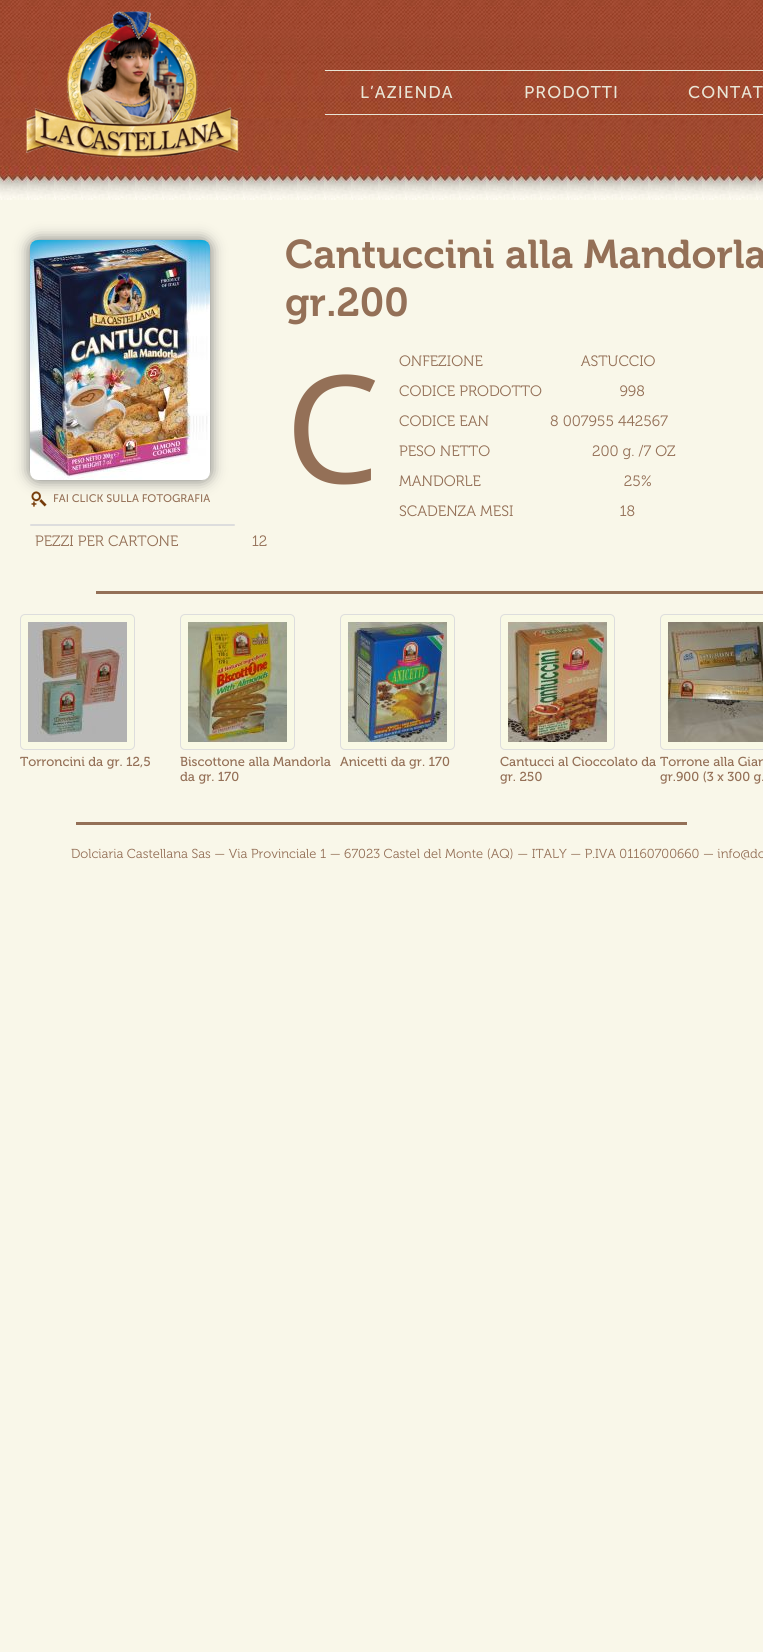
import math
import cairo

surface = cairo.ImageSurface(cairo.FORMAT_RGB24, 763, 1652)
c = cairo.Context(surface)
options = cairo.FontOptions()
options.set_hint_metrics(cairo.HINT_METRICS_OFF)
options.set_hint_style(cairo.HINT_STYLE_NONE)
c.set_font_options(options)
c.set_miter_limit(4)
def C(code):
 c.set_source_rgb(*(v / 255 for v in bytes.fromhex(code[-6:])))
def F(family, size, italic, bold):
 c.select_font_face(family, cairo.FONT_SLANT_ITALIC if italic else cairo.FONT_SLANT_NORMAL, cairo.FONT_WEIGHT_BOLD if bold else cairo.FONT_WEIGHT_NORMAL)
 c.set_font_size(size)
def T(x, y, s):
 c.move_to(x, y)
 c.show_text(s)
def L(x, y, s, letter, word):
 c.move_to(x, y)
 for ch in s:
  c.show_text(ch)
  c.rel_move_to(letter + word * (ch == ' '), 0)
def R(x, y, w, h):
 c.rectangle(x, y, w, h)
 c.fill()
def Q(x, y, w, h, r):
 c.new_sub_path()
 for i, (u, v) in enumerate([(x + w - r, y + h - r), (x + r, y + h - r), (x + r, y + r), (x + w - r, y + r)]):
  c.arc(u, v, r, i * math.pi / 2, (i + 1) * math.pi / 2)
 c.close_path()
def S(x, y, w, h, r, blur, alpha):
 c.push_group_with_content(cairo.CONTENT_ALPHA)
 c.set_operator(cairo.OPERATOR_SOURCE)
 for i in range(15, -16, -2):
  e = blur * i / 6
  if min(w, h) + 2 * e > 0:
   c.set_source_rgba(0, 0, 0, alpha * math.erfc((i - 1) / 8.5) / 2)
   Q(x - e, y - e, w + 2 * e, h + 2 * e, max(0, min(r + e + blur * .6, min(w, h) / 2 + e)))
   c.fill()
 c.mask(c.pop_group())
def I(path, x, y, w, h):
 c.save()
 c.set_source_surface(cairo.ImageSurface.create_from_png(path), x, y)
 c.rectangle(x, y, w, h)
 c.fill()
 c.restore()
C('f9f7e9')
c.paint()
I('1.png',0,0,763,200)
I('2.png',25,11,214,148)
C('e9e5d5')
R(325,70,438,1)
R(325,114,438,1)
F('Museo Sans',17,0,0)
L(360,98,'L’AZIENDA',1,0)
L(524,98,'PRODOTTI',1,0)
L(688,98,'CONTAT',1,0)
F('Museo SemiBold',40,0,0)
C('947057')
T(285,268,'Cantuccini alla Mandorla')
T(285,316,'gr.200')
F('Museo Light',15,0,0)
T(399,366,'ONFEZIONE                        ASTUCCIO')
F('Noto Sans',150,0,0)
T(285,483,'C')
F('Museo Light',15,0,0)
T(399,396,'CODICE PRODOTTO                   998')
T(399,426,'CODICE EAN               8 007955 442567')
T(399,456,'PESO NETTO                         200 g. /7 OZ')
T(399,486,'MANDORLE                                   25%')
T(399,516,'SCADENZA MESI                          18')
T(35,546,'PEZZI PER CARTONE                  12')
I('4.png',31,491,16,16)
C('777777')
S(30,240,180,240,8,7.5,1)
I('3.png',30,240,180,240)
F('Museo Sans',11,0,0)
C('947057')
T(53,502,'FAI CLICK SULLA FOTOGRAFIA')
C('dddddd')
Q(30,524,205,2,1)
c.fill()
C('947057')
R(96,591,667,3)
C('f9f9e5')
Q(20.5,614.5,114,135,4.5)
c.fill_preserve()
C('dddddd')
c.set_line_width(1)
c.stroke()
I('5.png',28,622,99,120)
F('Museo',13,0,0)
C('947057')
T(20,766,'Torroncini da gr. 12,5')
C('f9f9e5')
Q(180.5,614.5,114,135,4.5)
c.fill_preserve()
C('dddddd')
c.stroke()
I('6.png',188,622,99,120)
C('947057')
T(180,766,'Biscottone alla Mandorla')
T(180,781,'da gr. 170')
C('f9f9e5')
Q(340.5,614.5,114,135,4.5)
c.fill_preserve()
C('dddddd')
c.stroke()
I('7.png',348,622,99,120)
C('947057')
T(340,766,'Anicetti da gr. 170')
C('f9f9e5')
Q(500.5,614.5,114,135,4.5)
c.fill_preserve()
C('dddddd')
c.stroke()
I('8.png',508,622,99,120)
C('947057')
T(500,766,'Cantucci al Cioccolato da')
T(500,781,'gr. 250')
C('f9f9e5')
Q(660.5,614.5,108,135,4.5)
c.fill_preserve()
C('dddddd')
c.stroke()
I('9.png',668,622,95,120)
C('947057')
T(660,766,'Torrone alla Gian')
T(660,781,'gr.900 (3 x 300 g.')
R(76,822,611,3)
F('Museo Light',13,0,0)
T(71,858,'Dolciaria Castellana Sas — Via Provinciale 1 — 67023 Castel del Monte (AQ) — ITALY — P.IVA 01160700660 — info@do')
surface.write_to_png('o.png')
